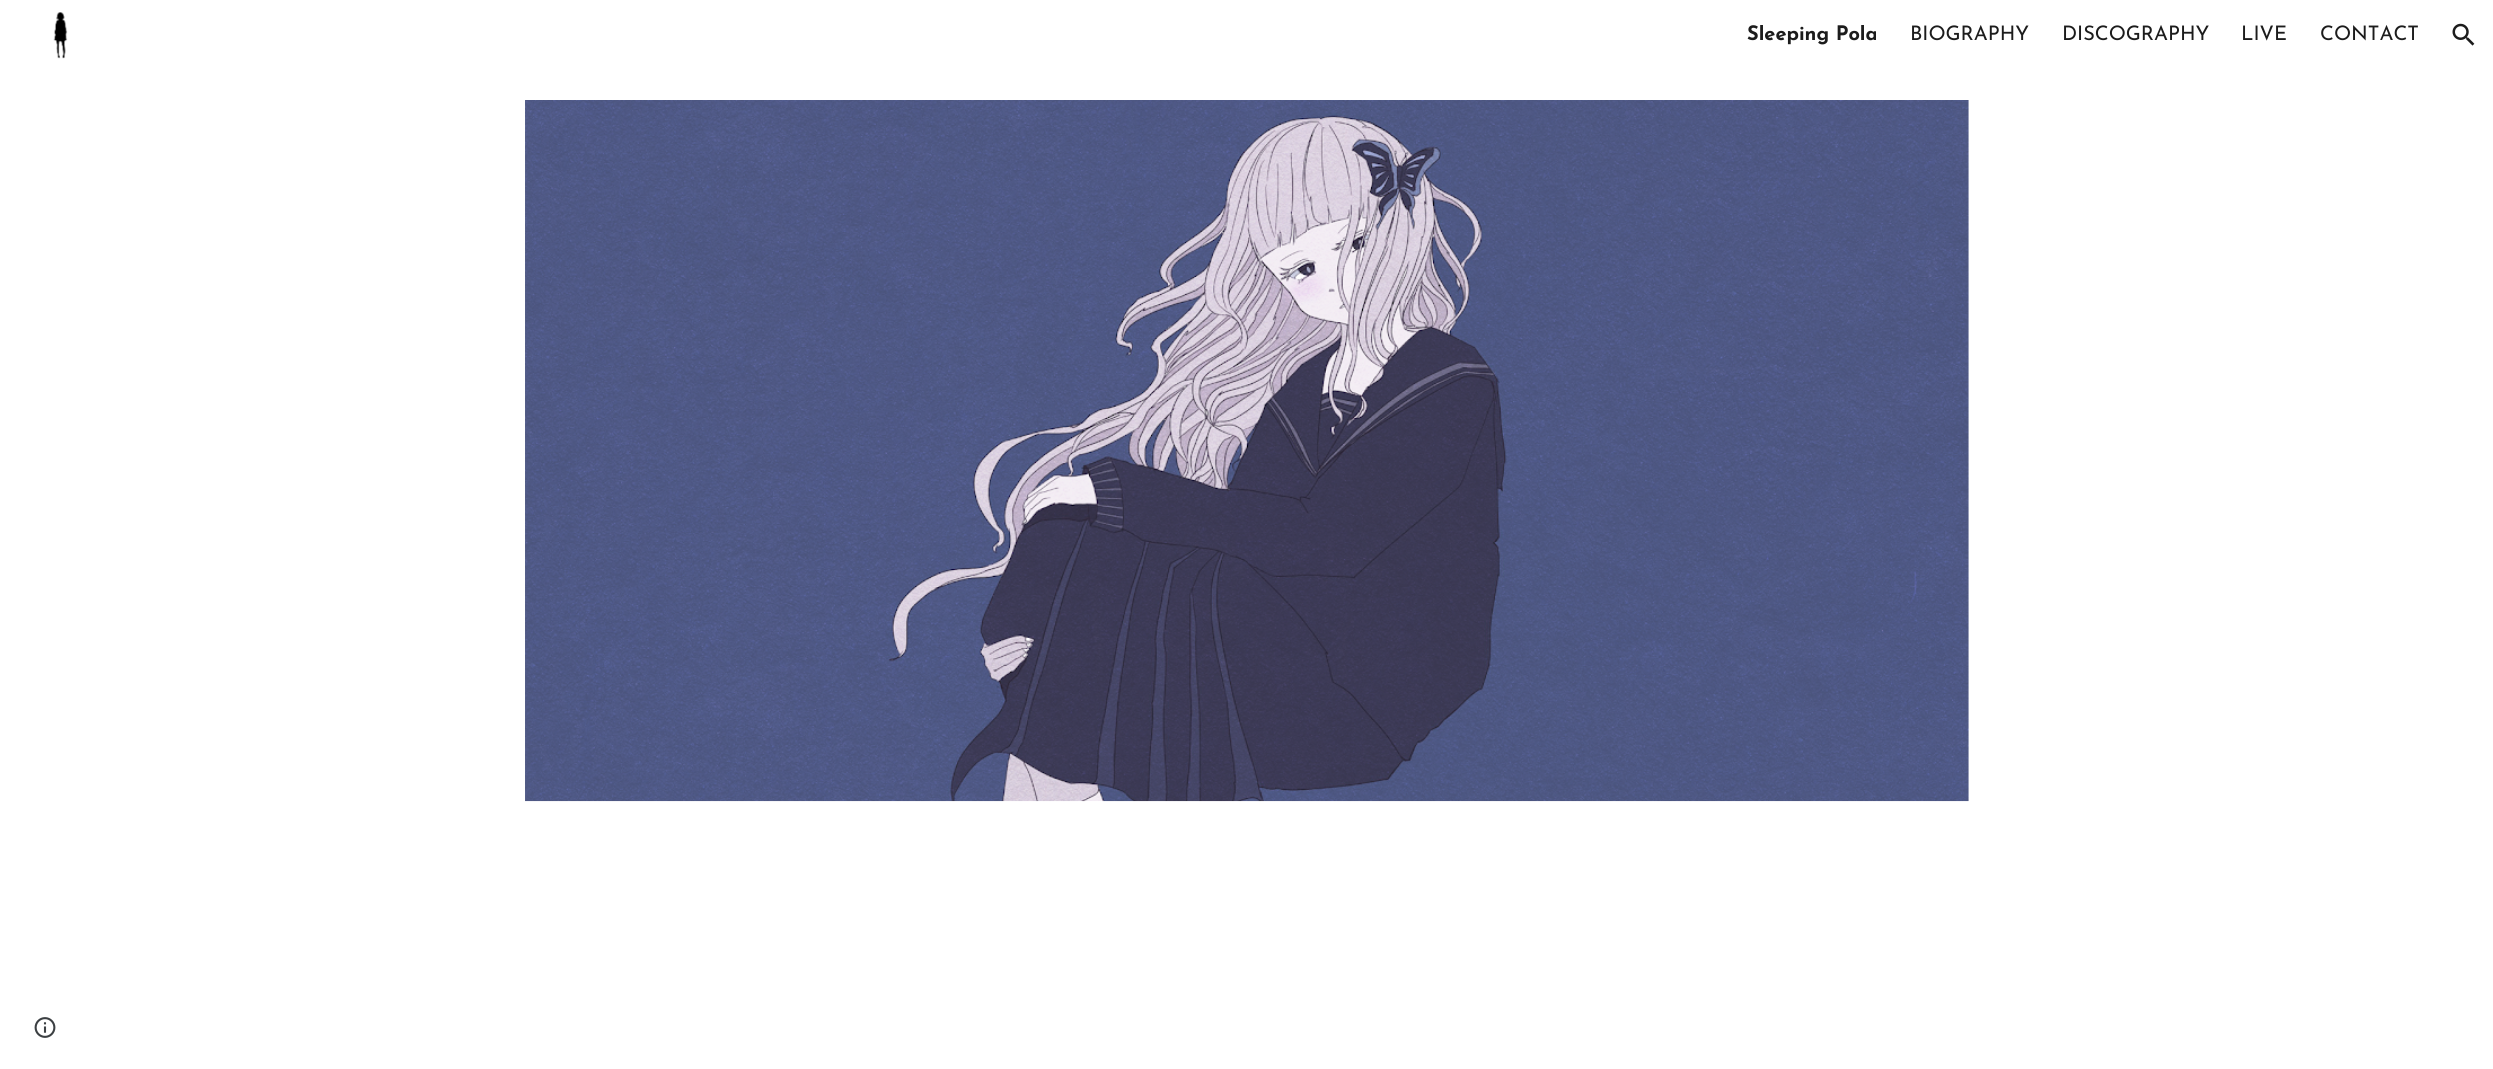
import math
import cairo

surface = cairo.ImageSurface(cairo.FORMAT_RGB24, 2493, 1069)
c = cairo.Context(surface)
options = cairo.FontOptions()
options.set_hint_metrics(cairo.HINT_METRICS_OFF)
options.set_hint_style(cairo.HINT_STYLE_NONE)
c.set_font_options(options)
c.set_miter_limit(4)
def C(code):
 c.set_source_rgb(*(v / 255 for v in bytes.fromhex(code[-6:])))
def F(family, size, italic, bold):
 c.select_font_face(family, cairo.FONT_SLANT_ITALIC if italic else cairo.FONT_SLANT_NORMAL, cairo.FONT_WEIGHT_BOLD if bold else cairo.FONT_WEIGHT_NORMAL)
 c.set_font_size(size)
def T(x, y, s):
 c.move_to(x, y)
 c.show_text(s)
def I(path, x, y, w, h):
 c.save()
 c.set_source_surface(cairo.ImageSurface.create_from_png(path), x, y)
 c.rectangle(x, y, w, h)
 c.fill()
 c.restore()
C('ffffff')
c.paint()
I('1.png',53,12,15,47)
c.save()
c.rectangle(1746,25,132,20)
c.clip()
F('Josefin Sans',20,0,1)
C('1c1c1c')
T(1747,40,'Sleeping Pola')
c.restore()
F('Josefin Sans',20,0,0)
C('1c1c1c')
T(1910,40,'BIOGRAPHY')
T(2062,40,'DISCOGRAPHY')
T(2241,40,'LIVE')
T(2320,40,'CONTACT')
I('2.png',2452,23,23,23)
I('3.png',525,100,1444,702)
I('4.png',34,1017,22,21)
surface.write_to_png('o.png')
